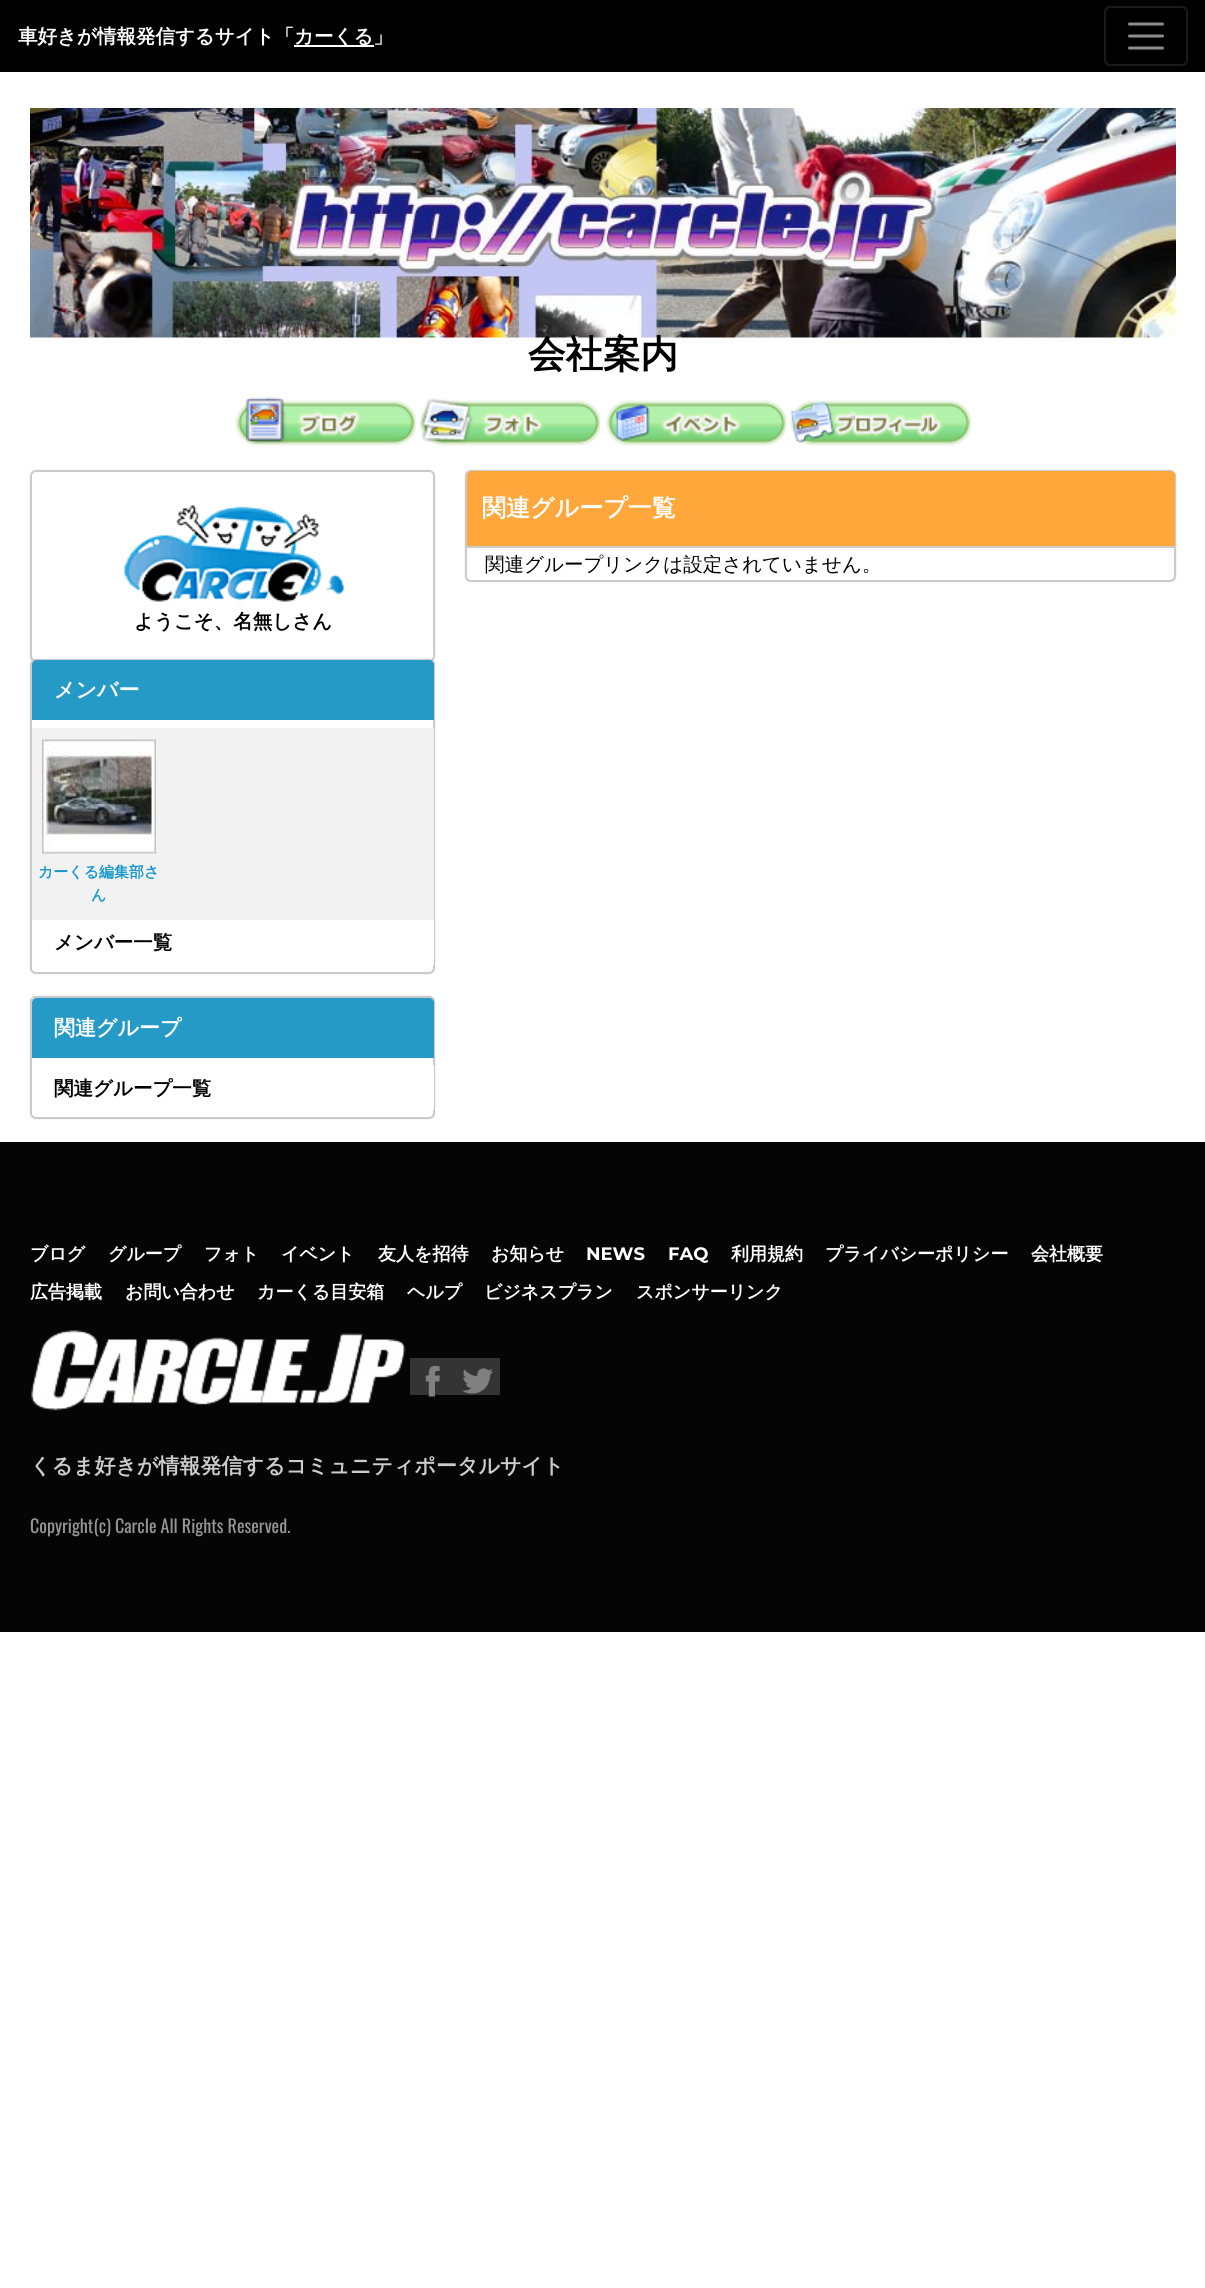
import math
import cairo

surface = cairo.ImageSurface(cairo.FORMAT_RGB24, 1205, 2288)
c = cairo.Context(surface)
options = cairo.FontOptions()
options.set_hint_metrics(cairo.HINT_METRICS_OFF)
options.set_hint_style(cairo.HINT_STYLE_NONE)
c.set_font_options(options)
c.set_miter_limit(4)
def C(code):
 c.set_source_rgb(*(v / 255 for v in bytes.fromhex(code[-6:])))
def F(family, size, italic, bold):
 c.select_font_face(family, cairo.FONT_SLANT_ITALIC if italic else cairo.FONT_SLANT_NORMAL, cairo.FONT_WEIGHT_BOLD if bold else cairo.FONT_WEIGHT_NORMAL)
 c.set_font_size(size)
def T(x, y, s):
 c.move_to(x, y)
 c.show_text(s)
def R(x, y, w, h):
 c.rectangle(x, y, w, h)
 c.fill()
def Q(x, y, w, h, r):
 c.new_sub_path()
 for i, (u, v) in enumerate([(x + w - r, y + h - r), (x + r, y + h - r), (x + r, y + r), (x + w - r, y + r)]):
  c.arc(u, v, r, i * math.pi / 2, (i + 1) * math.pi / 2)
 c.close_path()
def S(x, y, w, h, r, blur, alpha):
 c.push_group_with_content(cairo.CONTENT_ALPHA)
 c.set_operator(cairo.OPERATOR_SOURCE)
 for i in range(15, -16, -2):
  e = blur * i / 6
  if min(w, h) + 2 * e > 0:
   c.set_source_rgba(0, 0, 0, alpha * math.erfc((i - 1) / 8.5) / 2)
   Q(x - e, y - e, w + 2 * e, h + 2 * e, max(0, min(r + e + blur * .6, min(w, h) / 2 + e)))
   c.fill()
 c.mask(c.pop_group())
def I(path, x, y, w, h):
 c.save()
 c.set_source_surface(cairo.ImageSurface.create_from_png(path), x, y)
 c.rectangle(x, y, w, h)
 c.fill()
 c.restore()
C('ffffff')
c.paint()
C('000000')
R(0,0,1205,72)
F('WenQuanYi Zen Hei',19.5,0,1)
C('ffffff')
T(18,43,'車好きが情報発信するサイト「')
R(294,45,80,2)
T(294,43,'カーくる」')
Q(1105,7,82,58,5)
C('1a1a1a')
c.stroke()
c.new_path()
c.move_to(1129.5,24)
c.line_to(1162.5,24)
c.move_to(1129.5,36)
c.line_to(1162.5,36)
c.move_to(1129.5,48)
c.line_to(1162.5,48)
C('8c8c8c')
c.set_line_width(3)
c.set_line_cap(cairo.LINE_CAP_ROUND)
c.stroke()
I('1.png',30,108,1146,230)
F('WenQuanYi Zen Hei',37.5,0,1)
C('000000')
T(528,367,'会社案内')
I('2.png',235,397,181,49)
I('3.png',420,398,180,48)
I('4.png',606,400,180,46)
I('5.png',790,400,181,46)
C('000000')
S(465,470,711,112,6,1,.1)
C('ffffff')
Q(466,471,709,110,5)
c.fill_preserve()
C('cacaca')
c.set_line_width(2)
c.set_line_cap(cairo.LINE_CAP_BUTT)
c.stroke()
C('ffa73b')
c.new_path()
c.move_to(472,471)
c.line_to(1170,471)
c.curve_to(1173,471,1175,473,1175,476)
c.line_to(1175,548)
c.line_to(467,548)
c.line_to(467,476)
c.curve_to(467,473,469,471,472,471)
c.close_path()
c.fill()
C('cccccc')
R(467,546,708,2)
F('WenQuanYi Zen Hei',24,0,1)
C('ffffff')
T(482,516,'関連グループ一覧')
F('WenQuanYi Zen Hei Medium',19.5,0,0)
C('000000')
T(485,571,'関連グループリンクは設定されていません。')
C('000000')
S(30,470,405,192,6,1,.1)
C('ffffff')
Q(31,471,403,190,5)
c.fill_preserve()
C('cacaca')
c.stroke()
I('6.png',124,505,220,97)
F('WenQuanYi Zen Hei',19.5,0,1)
C('000000')
T(134,628,'ようこそ、名無しさん')
C('000000')
S(30,659,405,315,6,1,.1)
C('ffffff')
Q(31,660,403,313,5)
c.fill_preserve()
C('cacaca')
c.stroke()
C('269ac6')
c.new_path()
c.move_to(37,660)
c.line_to(429,660)
c.curve_to(432,660,434,662,434,665)
c.line_to(434,720)
c.line_to(32,720)
c.line_to(32,665)
c.curve_to(32,662,34,660,37,660)
c.close_path()
c.fill()
F('WenQuanYi Zen Hei',21,0,1)
C('ffffff')
T(54,697,'メンバー')
C('f2f2f2')
R(32,728,402,192)
I('7.png',42,739,114,115)
F('WenQuanYi Zen Hei',15,0,1)
C('1797cc')
T(38,877,'カーくる編集部さ')
T(91,900,'ん')
C('ffffff')
R(433,920,1,45)
F('WenQuanYi Zen Hei',19.5,0,1)
C('000000')
T(54,949,'メンバー一覧')
C('000000')
S(30,996,405,123,6,1,.1)
C('ffffff')
Q(31,997,403,121,5)
c.fill_preserve()
C('cacaca')
c.stroke()
C('269ac6')
c.new_path()
c.move_to(37,998)
c.line_to(429,998)
c.curve_to(432,998,434,1000,434,1003)
c.line_to(434,1058)
c.line_to(32,1058)
c.line_to(32,1003)
c.curve_to(32,1000,34,998,37,998)
c.close_path()
c.fill()
F('WenQuanYi Zen Hei',21,0,1)
C('ffffff')
T(54,1035,'関連グループ')
R(433,1065,1,45)
F('WenQuanYi Zen Hei',19.5,0,1)
C('000000')
T(54,1095,'関連グループ一覧')
C('050505')
R(0,1142,1205,490)
F('WenQuanYi Zen Hei',18,0,1)
C('ffffff')
T(30,1260,'ブログ')
T(108,1260,'グループ')
T(204,1260,'フォト')
T(281,1260,'イベント')
T(378,1260,'友人を招待')
T(491,1260,'お知らせ')
F('Montserrat',18,0,1)
T(586,1260,'NEWS')
T(668,1260,'FAQ')
F('WenQuanYi Zen Hei',18,0,1)
T(731,1260,'利用規約')
T(825,1260,'プライバシーポリシー')
T(1031,1260,'会社概要')
T(30,1298,'広告掲載')
T(125,1298,'お問い合わせ')
T(257,1298,'カーくる目安箱')
T(407,1298,'ヘルプ')
T(484,1298,'ビジネスプラン')
T(636,1298,'スポンサーリンク')
I('8.png',31,1330,375,81)
C('343434')
R(410,1358,90,37)
I('9.png',425,1365,16,32)
I('10.png',462,1368,32,26)
F('WenQuanYi Zen Hei',21,0,1)
C('cccccc')
T(30,1473,'くるま好きが情報発信するコミュニティポータルサイト')
F('Oswald',18,0,0)
C('969696')
T(30,1533,'Copyright(c) Carcle All Rights Reserved.')
surface.write_to_png('o.png')
